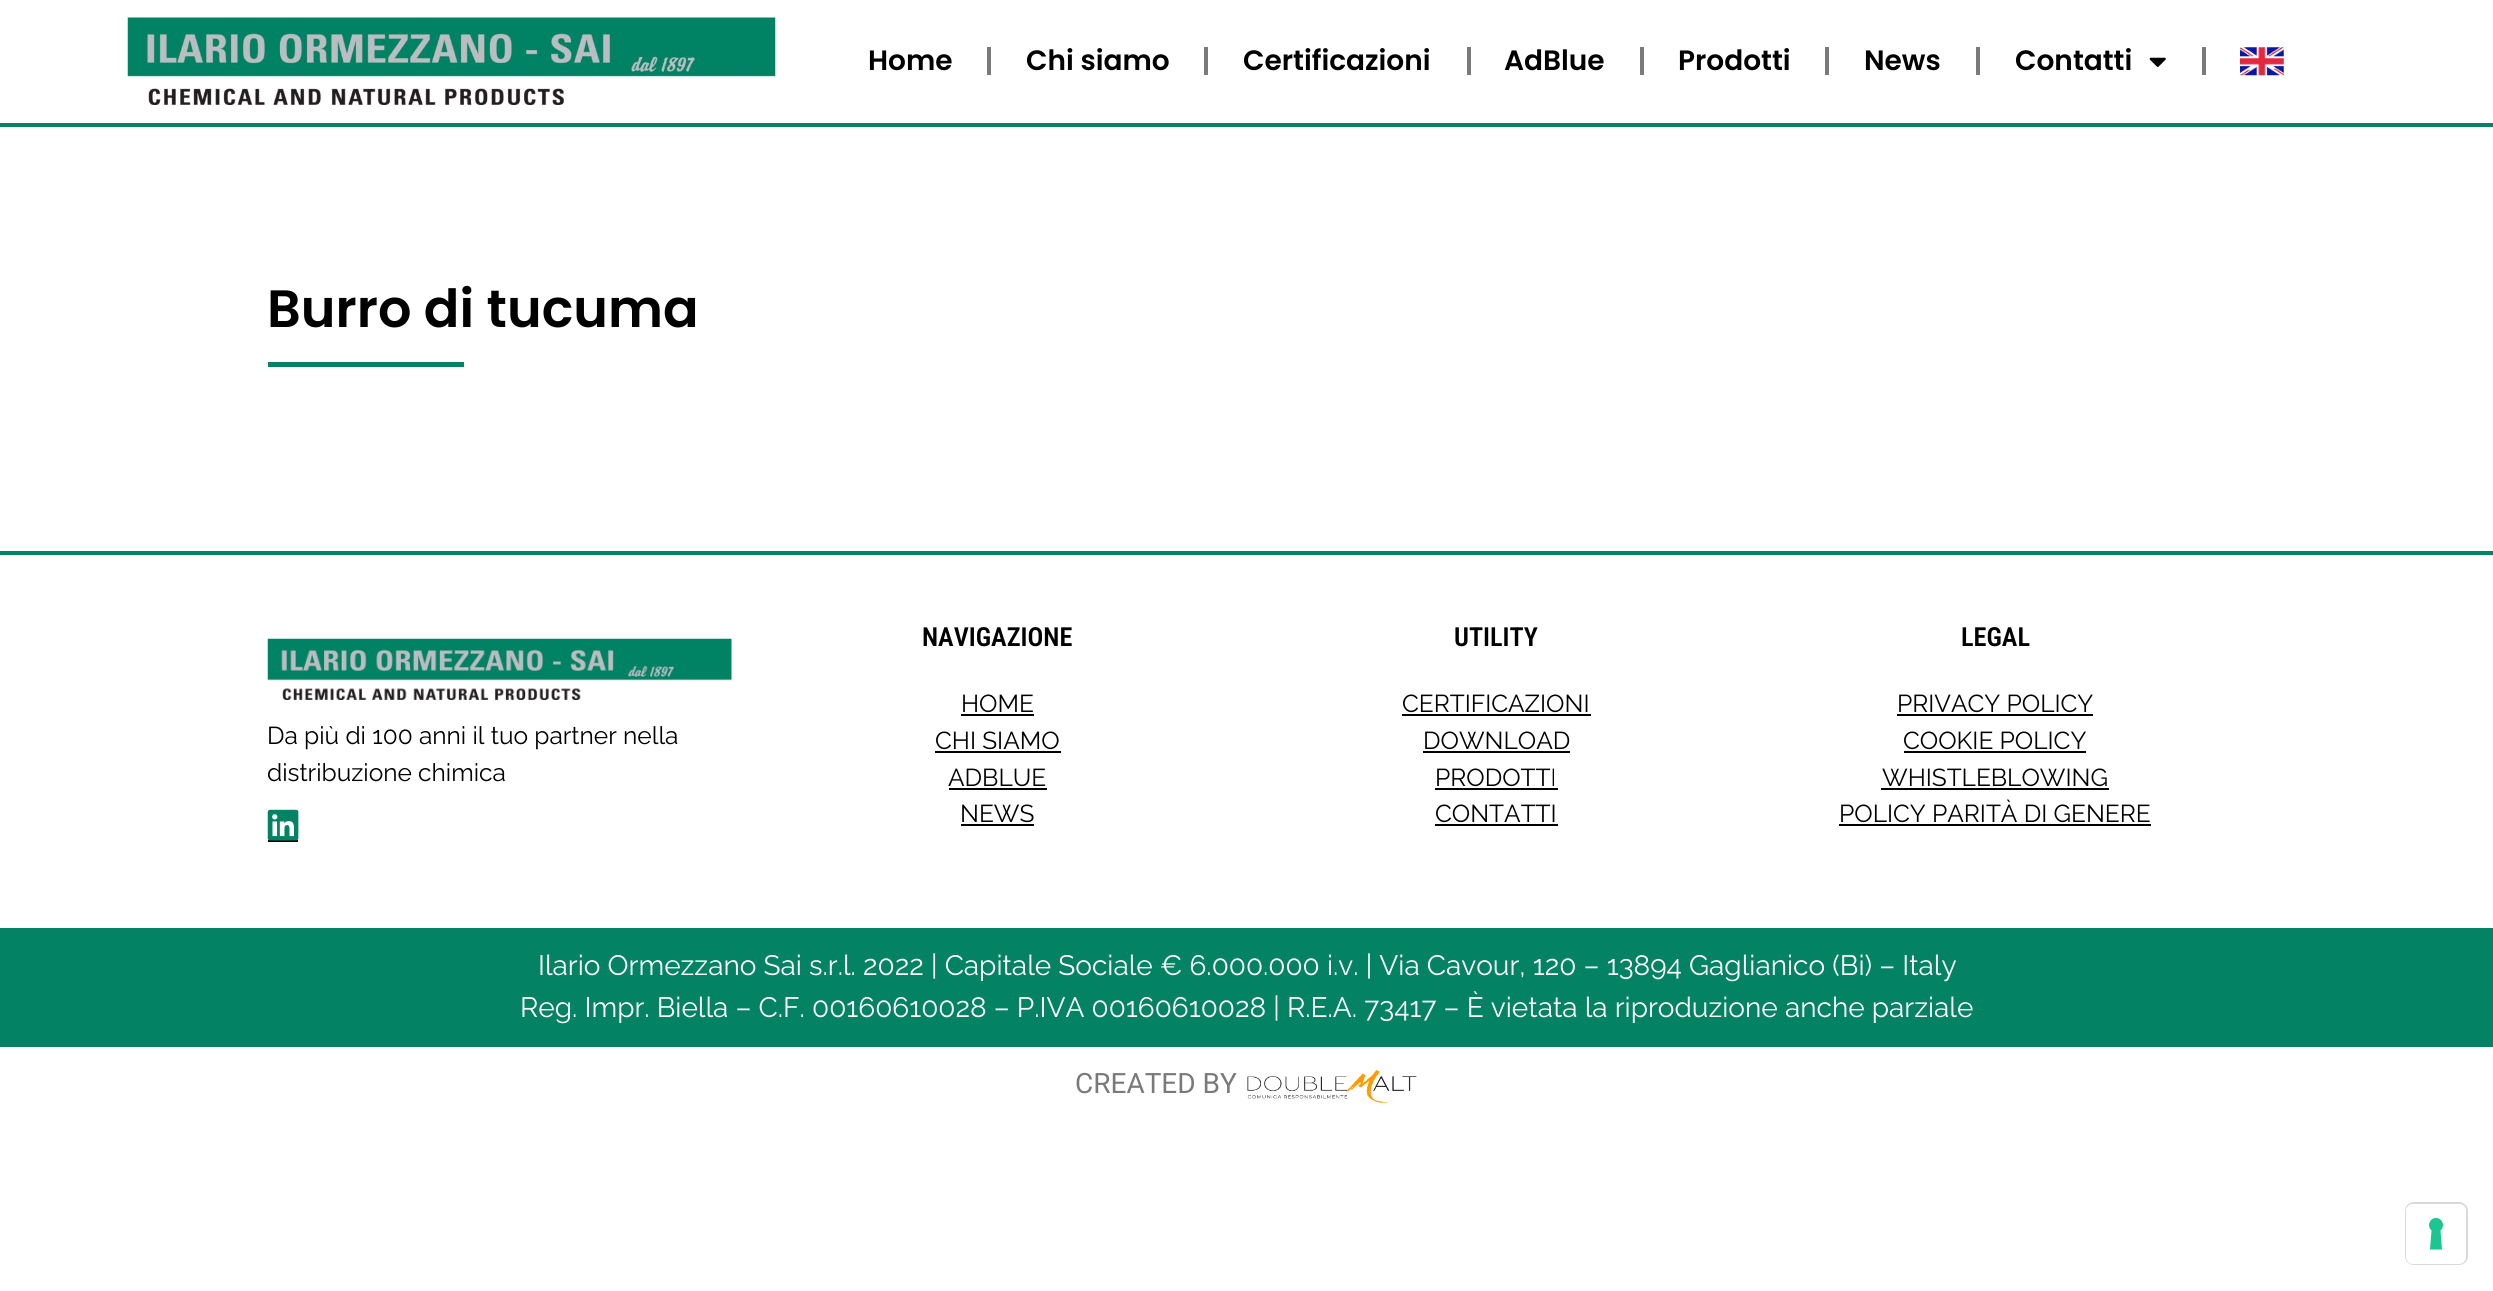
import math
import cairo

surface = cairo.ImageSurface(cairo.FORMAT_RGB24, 2493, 1291)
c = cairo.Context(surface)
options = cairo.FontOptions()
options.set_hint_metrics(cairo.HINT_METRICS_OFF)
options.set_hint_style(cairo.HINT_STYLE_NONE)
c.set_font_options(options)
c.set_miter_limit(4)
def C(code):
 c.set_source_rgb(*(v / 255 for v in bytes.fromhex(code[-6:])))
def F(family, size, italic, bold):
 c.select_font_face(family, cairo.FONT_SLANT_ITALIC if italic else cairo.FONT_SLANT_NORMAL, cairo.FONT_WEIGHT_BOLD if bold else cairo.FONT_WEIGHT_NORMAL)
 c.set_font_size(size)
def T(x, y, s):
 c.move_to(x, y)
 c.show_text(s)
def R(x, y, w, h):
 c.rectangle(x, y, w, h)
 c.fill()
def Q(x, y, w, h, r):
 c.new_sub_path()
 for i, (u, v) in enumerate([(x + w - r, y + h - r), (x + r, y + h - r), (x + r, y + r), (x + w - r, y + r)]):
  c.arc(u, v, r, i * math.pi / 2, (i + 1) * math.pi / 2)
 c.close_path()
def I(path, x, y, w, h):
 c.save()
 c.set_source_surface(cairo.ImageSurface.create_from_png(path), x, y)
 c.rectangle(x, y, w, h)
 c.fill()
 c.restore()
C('ffffff')
c.paint()
C('038264')
R(0,123,2493,4)
I('1.png',127,17,649,88)
F('Poppins SemiBold',28,0,0)
C('000000')
T(868,70,'Home')
C('7a7a7a')
R(987,47,4,28)
C('000000')
T(1026,70,'Chi siamo')
C('7a7a7a')
R(1204,47,4,28)
C('000000')
T(1243,70,'Certificazioni')
C('7a7a7a')
R(1467,47,4,28)
C('000000')
T(1504,70,'AdBlue')
C('7a7a7a')
R(1640,47,4,28)
C('000000')
T(1678,70,'Prodotti')
C('7a7a7a')
R(1825,47,4,28)
C('000000')
T(1864,70,'News')
C('7a7a7a')
R(1976,47,4,28)
C('000000')
T(2015,70,'Contatti')
I('2.png',2149,57,17,10)
C('7a7a7a')
R(2202,47,4,28)
I('3.png',2240,47,44,29)
F('Poppins SemiBold',52.5,0,0)
C('000000')
T(267,327,'Burro di tucuma')
C('038264')
R(268,362,196,5)
R(0,551,2493,4)
I('4.png',267,638,465,62)
F('Raleway',24.5,0,0)
C('000000')
T(267,744,'Da più di 100 anni il tuo partner nella')
T(267,781,'distribuzione chimica')
R(268,840,30,2)
I('5.png',267,809,32,32)
F('Roboto Condensed SemiBold',26.25,0,0)
T(922,646,'NAVIGAZIONE')
F('Raleway',24.5,0,0)
T(961,712,'HOME')
R(961,714,73,2)
T(935,749,'CHI SIAMO')
R(935,751,126,2)
T(948,786,'ADBLUE')
R(949,788,98,2)
T(960,822,'NEWS')
R(961,824,73,2)
F('Roboto Condensed SemiBold',26.25,0,0)
T(1454,646,'UTILITY')
F('Raleway',24.5,0,0)
T(1402,712,'CERTIFICAZIONI')
R(1402,714,189,2)
T(1423,749,'DOWNLOAD')
R(1423,751,147,2)
T(1435,786,'PRODOTTI')
R(1435,788,123,2)
T(1435,822,'CONTATTI')
R(1435,824,123,2)
F('Roboto Condensed SemiBold',26.25,0,0)
T(1961,646,'LEGAL')
F('Raleway',24.5,0,0)
T(1897,712,'PRIVACY POLICY')
R(1897,714,196,2)
T(1903,749,'COOKIE POLICY')
R(1904,751,182,2)
T(1882,786,'WHISTLEBLOWING')
R(1881,788,228,2)
T(1839,822,'POLICY PARITÀ DI GENERE')
R(1839,824,312,2)
C('038264')
R(0,928,2493,119)
F('Raleway',28,0,0)
C('ffffff')
T(538,975,'Ilario Ormezzano Sai s.r.l. 2022 | Capitale Sociale € 6.000.000 i.v. | Via Cavour, 120 – 13894 Gaglianico (Bi) – Italy')
T(520,1017,'Reg. Impr. Biella – C.F. 00160610028 – P.IVA 00160610028 | R.E.A. 73417 – È vietata la riproduzione anche parziale')
F('Roboto',28,0,0)
C('7a7a7a')
T(1075,1093,'CREATED BY')
I('6.png',1247,1070,170,33)
Q(2406,1203,61,61,8)
C('d9d9d9')
c.stroke()
C('ffffff')
Q(2406,1204,60,60,7)
c.fill()
C('1cc691')
c.set_fill_rule(cairo.FILL_RULE_EVEN_ODD)
c.new_path()
c.move_to(2436,1218)
c.curve_to(2442.5,1218,2445.5,1226,2440.5,1230.5)
c.line_to(2442,1249.5)
c.line_to(2430,1249.5)
c.line_to(2431.5,1230.5)
c.curve_to(2426.5,1226,2429.5,1218,2436,1218)
c.close_path()
c.fill()
surface.write_to_png('o.png')
